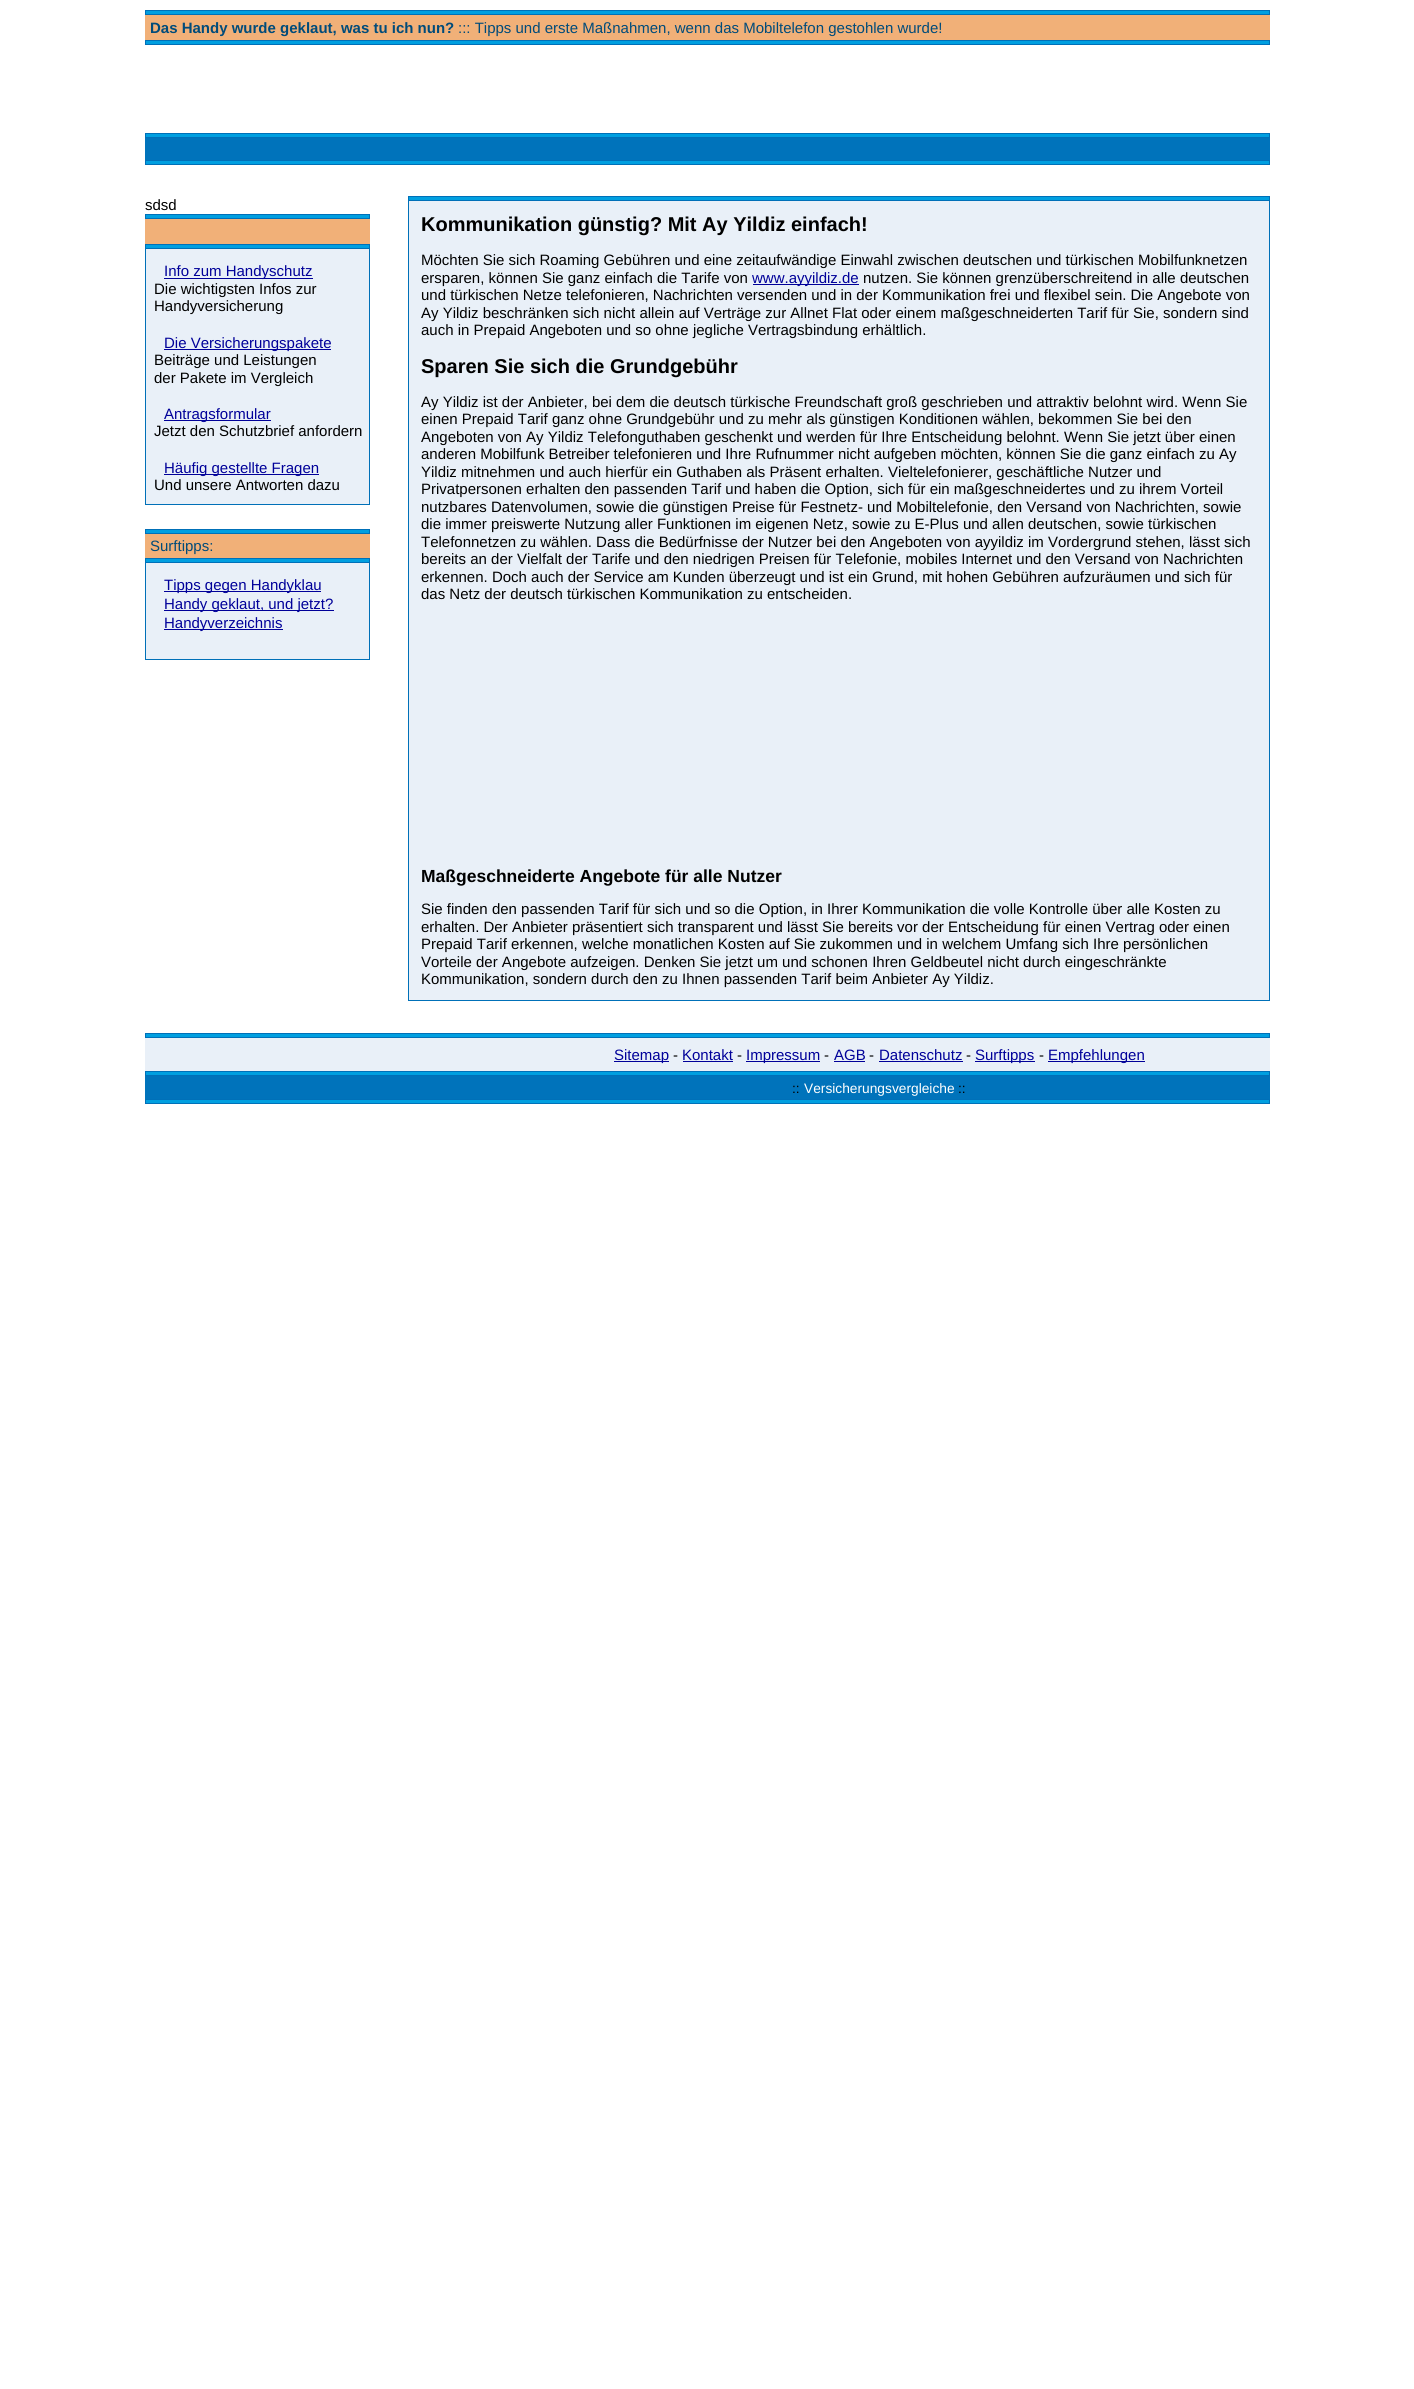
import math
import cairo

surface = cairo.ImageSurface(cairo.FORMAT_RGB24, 1414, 2389)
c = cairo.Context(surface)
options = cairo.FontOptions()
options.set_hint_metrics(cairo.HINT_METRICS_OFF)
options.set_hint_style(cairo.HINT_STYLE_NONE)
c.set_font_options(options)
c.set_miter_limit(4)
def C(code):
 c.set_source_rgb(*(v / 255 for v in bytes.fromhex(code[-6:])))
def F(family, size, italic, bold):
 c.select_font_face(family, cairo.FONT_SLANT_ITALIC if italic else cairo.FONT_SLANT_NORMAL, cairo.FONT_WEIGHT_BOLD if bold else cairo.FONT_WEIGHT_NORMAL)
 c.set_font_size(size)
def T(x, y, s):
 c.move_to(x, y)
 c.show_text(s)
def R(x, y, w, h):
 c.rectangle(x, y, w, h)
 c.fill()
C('ffffff')
c.paint()
C('009fe0')
c.rectangle(145.5,10.5,1124,4)
c.fill_preserve()
C('0070b8')
c.set_line_width(1)
c.stroke()
C('f1b078')
R(145,15,1125,25)
F('Liberation Sans',15,0,1)
C('004b7a')
T(150,33,'Das Handy wurde geklaut, was tu ich nun?')
F('Liberation Sans',15,0,0)
T(458,33,'::: Tipps und erste Maßnahmen, wenn das Mobiltelefon gestohlen wurde!')
C('009fe0')
c.rectangle(145.5,40.5,1124,4)
c.fill_preserve()
C('0070b8')
c.stroke()
C('009fe0')
c.rectangle(145.5,133.5,1124,4)
c.fill_preserve()
C('0070b8')
c.stroke()
C('0073bb')
R(145,138,1125,22)
C('009fe0')
c.rectangle(145.5,160.5,1124,4)
c.fill_preserve()
C('0070b8')
c.stroke()
C('000000')
T(145,210,'sdsd')
C('009fe0')
c.rectangle(145.5,214.5,224,4)
c.fill_preserve()
C('0070b8')
c.stroke()
C('f1b078')
R(145,219,225,25)
C('009fe0')
c.rectangle(145.5,244.5,224,4)
c.fill_preserve()
C('0070b8')
c.stroke()
C('e9f0f8')
R(146,249,223,255)
C('0070b8')
R(369,249,1,256)
R(145,504,225,1)
R(145,249,1,256)
C('000099')
R(164,278,149,1)
T(164,276,'Info zum Handyschutz')
C('000000')
T(154,294,'Die wichtigsten Infos zur')
T(154,311,'Handyversicherung')
C('000099')
R(164,349,167,1)
T(164,348,'Die Versicherungspakete')
C('000000')
T(154,365,'Beiträge und Leistungen')
T(154,383,'der Pakete im Vergleich')
C('000099')
R(164,420,107,1)
T(164,419,'Antragsformular')
C('000000')
T(154,436,'Jetzt den Schutzbrief anfordern')
C('000099')
R(164,474,155,1)
T(164,473,'Häufig gestellte Fragen')
C('000000')
T(154,490,'Und unsere Antworten dazu')
C('009fe0')
c.rectangle(145.5,529.5,224,4)
c.fill_preserve()
C('0070b8')
c.stroke()
C('f1b078')
R(145,534,225,24)
C('004b7a')
T(150,551,'Surftipps:')
C('009fe0')
c.rectangle(145.5,558.5,224,4)
c.fill_preserve()
C('0070b8')
c.stroke()
C('e9f0f8')
R(146,563,223,96)
C('0070b8')
R(369,563,1,97)
R(145,659,225,1)
R(145,563,1,97)
C('000099')
R(164,591,157,1)
T(164,590,'Tipps gegen Handyklau')
R(164,610,170,1)
T(164,609,'Handy geklaut, und jetzt?')
R(164,629,119,1)
T(164,628,'Handyverzeichnis')
C('009fe0')
c.rectangle(408.5,196.5,861,4)
c.fill_preserve()
C('0070b8')
c.stroke()
C('e9f0f8')
R(409,201,860,799)
C('0070b8')
R(1269,201,1,800)
R(408,1000,862,1)
R(408,201,1,800)
F('Liberation Sans',20,0,1)
C('000000')
T(421,231,'Kommunikation günstig? Mit Ay Yildiz einfach!')
F('Liberation Sans',15,0,0)
T(421,265,'Möchten Sie sich Roaming Gebühren und eine zeitaufwändige Einwahl zwischen deutschen und türkischen Mobilfunknetzen')
T(421,283,'ersparen, können Sie ganz einfach die Tarife von')
C('000099')
R(753,284,106,1)
T(752,283,'www.ayyildiz.de')
C('000000')
T(863,283,'nutzen. Sie können grenzüberschreitend in alle deutschen')
T(421,300,'und türkischen Netze telefonieren, Nachrichten versenden und in der Kommunikation frei und flexibel sein. Die Angebote von')
T(421,318,'Ay Yildiz beschränken sich nicht allein auf Verträge zur Allnet Flat oder einem maßgeschneiderten Tarif für Sie, sondern sind')
T(421,335,'auch in Prepaid Angeboten und so ohne jegliche Vertragsbindung erhältlich.')
F('Liberation Sans',20,0,1)
T(421,373,'Sparen Sie sich die Grundgebühr')
F('Liberation Sans',15,0,0)
T(421,407,'Ay Yildiz ist der Anbieter, bei dem die deutsch türkische Freundschaft groß geschrieben und attraktiv belohnt wird. Wenn Sie')
T(421,424,'einen Prepaid Tarif ganz ohne Grundgebühr und zu mehr als günstigen Konditionen wählen, bekommen Sie bei den')
T(421,442,'Angeboten von Ay Yildiz Telefonguthaben geschenkt und werden für Ihre Entscheidung belohnt. Wenn Sie jetzt über einen')
T(421,459,'anderen Mobilfunk Betreiber telefonieren und Ihre Rufnummer nicht aufgeben möchten, können Sie die ganz einfach zu Ay')
T(421,477,'Yildiz mitnehmen und auch hierfür ein Guthaben als Präsent erhalten. Vieltelefonierer, geschäftliche Nutzer und')
T(421,494,'Privatpersonen erhalten den passenden Tarif und haben die Option, sich für ein maßgeschneidertes und zu ihrem Vorteil')
T(421,512,'nutzbares Datenvolumen, sowie die günstigen Preise für Festnetz- und Mobiltelefonie, den Versand von Nachrichten, sowie')
T(421,529,'die immer preiswerte Nutzung aller Funktionen im eigenen Netz, sowie zu E-Plus und allen deutschen, sowie türkischen')
T(421,547,'Telefonnetzen zu wählen. Dass die Bedürfnisse der Nutzer bei den Angeboten von ayyildiz im Vordergrund stehen, lässt sich')
T(421,564,'bereits an der Vielfalt der Tarife und den niedrigen Preisen für Telefonie, mobiles Internet und den Versand von Nachrichten')
T(421,582,'erkennen. Doch auch der Service am Kunden überzeugt und ist ein Grund, mit hohen Gebühren aufzuräumen und sich für')
T(421,599,'das Netz der deutsch türkischen Kommunikation zu entscheiden.')
F('Liberation Sans',17.5,0,1)
T(421,882,'Maßgeschneiderte Angebote für alle Nutzer')
F('Liberation Sans',15,0,0)
T(421,914,'Sie finden den passenden Tarif für sich und so die Option, in Ihrer Kommunikation die volle Kontrolle über alle Kosten zu')
T(421,932,'erhalten. Der Anbieter präsentiert sich transparent und lässt Sie bereits vor der Entscheidung für einen Vertrag oder einen')
T(421,949,'Prepaid Tarif erkennen, welche monatlichen Kosten auf Sie zukommen und in welchem Umfang sich Ihre persönlichen')
T(421,967,'Vorteile der Angebote aufzeigen. Denken Sie jetzt um und schonen Ihren Geldbeutel nicht durch eingeschränkte')
T(421,984,'Kommunikation, sondern durch den zu Ihnen passenden Tarif beim Anbieter Ay Yildiz.')
C('009fe0')
c.rectangle(145.5,1033.5,1124,4)
c.fill_preserve()
C('0070b8')
c.stroke()
C('e9f0f8')
R(145,1038,1125,33)
C('000099')
R(614,1061,55,1)
T(614,1060,'Sitemap')
C('000000')
T(673,1060,'-')
C('000099')
T(682,1060,'Kontakt')
R(683,1061,50,1)
C('000000')
T(737,1060,'-')
C('000099')
R(746,1061,74,1)
T(746,1060,'Impressum')
C('000000')
T(824,1060,'-')
C('000099')
T(834,1060,'AGB')
R(834,1061,31,1)
C('000000')
T(869,1060,'-')
C('000099')
T(879,1060,'Datenschutz')
R(879,1061,84,1)
C('000000')
T(966,1060,'-')
C('000099')
R(975,1061,60,1)
T(975,1060,'Surftipps')
C('000000')
T(1039,1060,'-')
C('000099')
R(1048,1061,97,1)
T(1048,1060,'Empfehlungen')
C('009fe0')
c.rectangle(145.5,1071.5,1124,4)
c.fill_preserve()
C('0070b8')
c.stroke()
C('0073bb')
R(145,1076,1125,23)
F('Liberation Sans',13.75,0,0)
C('000000')
T(792,1093,'::')
C('ffffff')
T(804,1093,'Versicherungsvergleiche')
C('000000')
T(958,1093,'::')
C('009fe0')
c.rectangle(145.5,1099.5,1124,4)
c.fill_preserve()
C('0070b8')
c.stroke()
surface.write_to_png('o.png')
